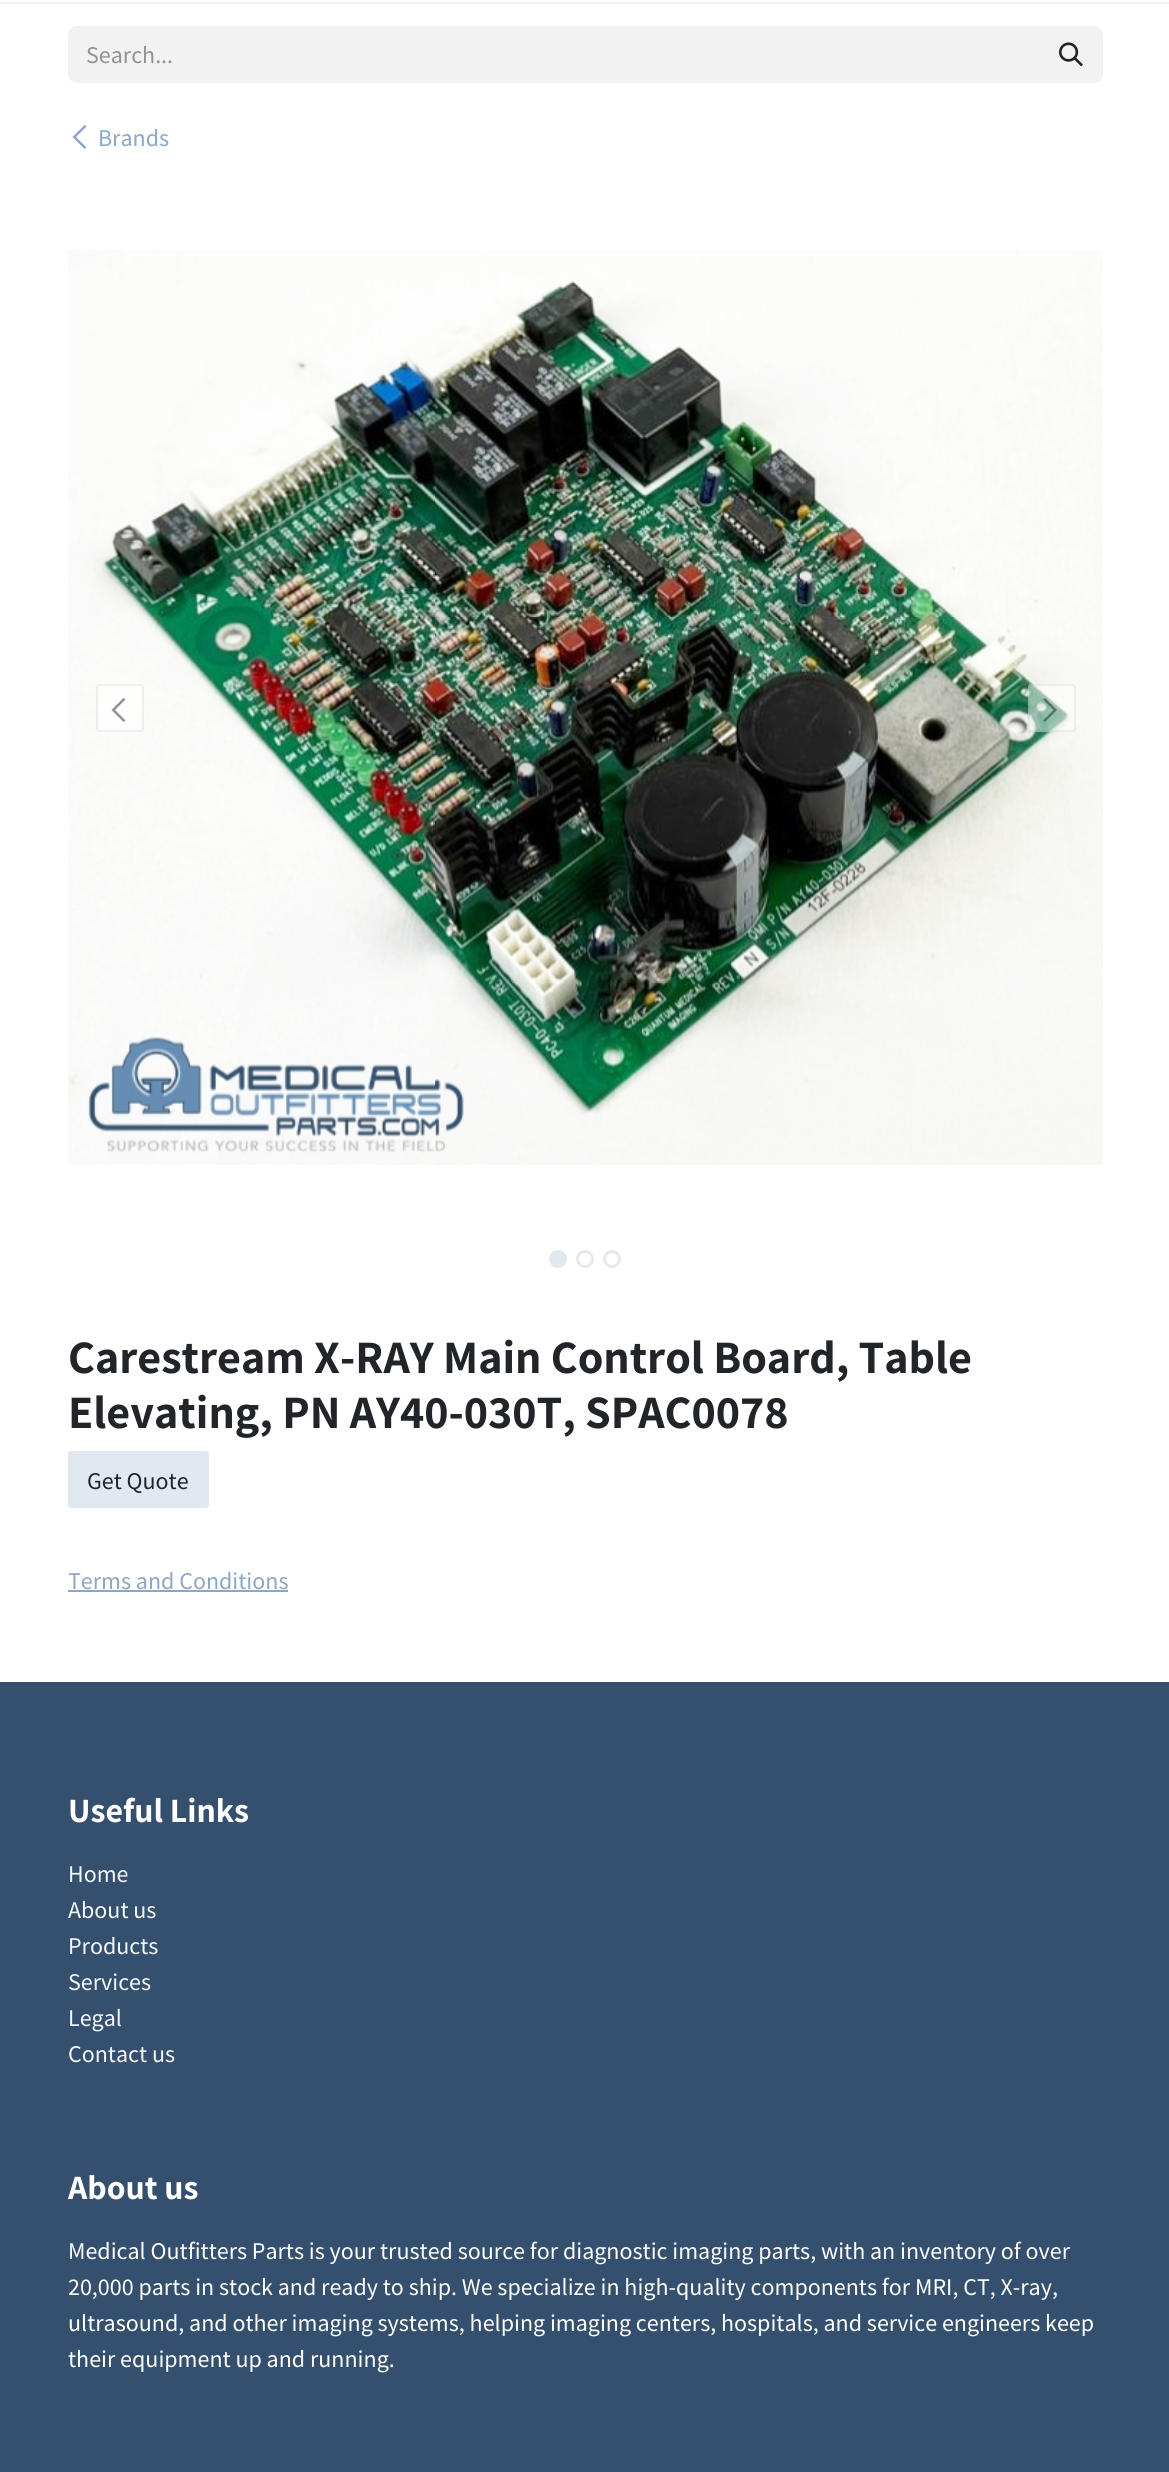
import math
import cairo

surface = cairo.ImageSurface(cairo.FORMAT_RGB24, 1169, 2472)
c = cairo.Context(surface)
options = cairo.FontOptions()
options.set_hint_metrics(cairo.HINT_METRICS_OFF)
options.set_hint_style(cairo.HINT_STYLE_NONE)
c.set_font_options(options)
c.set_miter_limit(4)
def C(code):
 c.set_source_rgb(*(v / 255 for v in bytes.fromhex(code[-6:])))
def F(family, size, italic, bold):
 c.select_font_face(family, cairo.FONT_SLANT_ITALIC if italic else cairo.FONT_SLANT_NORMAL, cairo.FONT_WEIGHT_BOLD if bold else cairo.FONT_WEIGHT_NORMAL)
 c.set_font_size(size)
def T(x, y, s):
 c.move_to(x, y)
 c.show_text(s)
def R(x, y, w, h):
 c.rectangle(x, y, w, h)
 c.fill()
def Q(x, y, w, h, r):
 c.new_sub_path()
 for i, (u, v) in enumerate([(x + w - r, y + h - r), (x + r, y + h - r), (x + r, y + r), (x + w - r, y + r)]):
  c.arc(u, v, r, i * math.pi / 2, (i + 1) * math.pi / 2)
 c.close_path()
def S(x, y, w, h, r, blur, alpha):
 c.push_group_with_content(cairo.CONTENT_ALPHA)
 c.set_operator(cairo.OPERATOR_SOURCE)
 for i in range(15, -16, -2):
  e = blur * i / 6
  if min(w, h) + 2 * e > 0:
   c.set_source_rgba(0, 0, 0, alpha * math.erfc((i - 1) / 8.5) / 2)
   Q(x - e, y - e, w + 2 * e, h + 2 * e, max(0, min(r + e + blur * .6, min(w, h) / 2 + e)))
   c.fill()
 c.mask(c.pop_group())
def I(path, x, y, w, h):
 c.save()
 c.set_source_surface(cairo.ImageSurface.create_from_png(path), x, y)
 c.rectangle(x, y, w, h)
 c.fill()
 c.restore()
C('ffffff')
c.paint()
C('000000')
S(0,-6,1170,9,0,2,.1)
C('ffffff')
R(0,0,1169,2)
C('f3f2f2')
c.new_path()
c.move_to(77,26)
c.line_to(1041,26)
c.line_to(1041,83)
c.line_to(77,83)
c.curve_to(72,83,68,79,68,74)
c.line_to(68,35)
c.curve_to(68,30,72,26,77,26)
c.close_path()
c.fill()
F('Source Sans Pro',24,0,0)
C('909294')
T(86,63,'Search...')
C('f3f2f2')
c.new_path()
c.move_to(1041,27)
c.line_to(1094,27)
c.curve_to(1098.5,27,1102,30.5,1102,35)
c.line_to(1102,74)
c.curve_to(1102,78.5,1098.5,82,1094,82)
c.line_to(1041,82)
c.close_path()
c.fill_preserve()
c.stroke()
I('1.png',1059,42,24,25)
C('8ca7c6')
c.new_path()
c.move_to(72.5,137)
c.line_to(84.5,125)
c.line_to(86.5,126.5)
c.line_to(76,137)
c.line_to(86.5,147.5)
c.line_to(84.5,149)
c.close_path()
c.fill()
T(98,146,'Brands')
I('2.png',68,250,1035,915)
c.set_source_rgba(1,1,1,0.5)
Q(96,684,48,48,3)
c.fill()
Q(97,685,46,46,2)
c.set_source_rgba(0.129,0.145,0.161,0.07)
c.stroke()
C('8f9193')
c.new_path()
c.move_to(111.5,710)
c.line_to(123.5,698)
c.line_to(125.5,699.5)
c.line_to(115,710)
c.line_to(125.5,720.5)
c.line_to(123.5,722)
c.close_path()
c.fill()
c.set_source_rgba(1,1,1,0.5)
Q(1028,684,48,48,3)
c.fill()
Q(1029,685,46,46,2)
c.set_source_rgba(0.129,0.145,0.161,0.07)
c.stroke()
c.set_source_rgba(0.129,0.145,0.161,0.5)
c.new_path()
c.move_to(1057,710)
c.line_to(1045,722)
c.line_to(1043,720.5)
c.line_to(1053.5,710)
c.line_to(1043,699.5)
c.line_to(1045,698)
c.close_path()
c.fill()
C('e1e8f0')
c.arc(558,1259,7.5,0,2 * math.pi)
c.fill_preserve()
c.set_line_width(3)
c.stroke()
c.arc(585,1259,7.5,0,2 * math.pi)
C('e7eaed')
c.stroke()
c.arc(612,1259,7.5,0,2 * math.pi)
c.stroke()
F('Assistant',46.4,0,1)
C('212529')
T(68,1373,'Carestream X-RAY Main Control Board, Table')
T(68,1428,'Elevating, PN AY40-030T, SPAC0078')
C('e1e8f0')
Q(69,1452,139,55,2)
c.fill_preserve()
c.set_line_width(2)
c.stroke()
F('Source Sans Pro',24,0,0)
C('212529')
T(87,1489,'Get Quote')
C('8ca7c6')
T(68,1589,'Terms and Conditions')
R(68,1590,220,2)
C('34506e')
R(0,1682,1169,790)
F('Assistant',34,0,1)
C('ffffff')
T(68,1822,'Useful Links')
F('Source Sans Pro',24,0,0)
C('f5f8fa')
T(68,1882,'Home')
T(68,1918,'About us')
T(68,1954,'Products')
T(68,1990,'Services')
T(68,2026,'Legal')
T(68,2062,'Contact us')
F('Assistant',34,0,1)
C('ffffff')
T(68,2199,'About us')
F('Source Sans Pro',24,0,0)
T(68,2259,'Medical Outfitters Parts is your trusted source for diagnostic imaging parts, with an inventory of over')
T(68,2295,'20,000 parts in stock and ready to ship. We specialize in high-quality components for MRI, CT, X-ray,')
T(68,2331,'ultrasound, and other imaging systems, helping imaging centers, hospitals, and service engineers keep')
T(68,2367,'their equipment up and running.')
surface.write_to_png('o.png')
